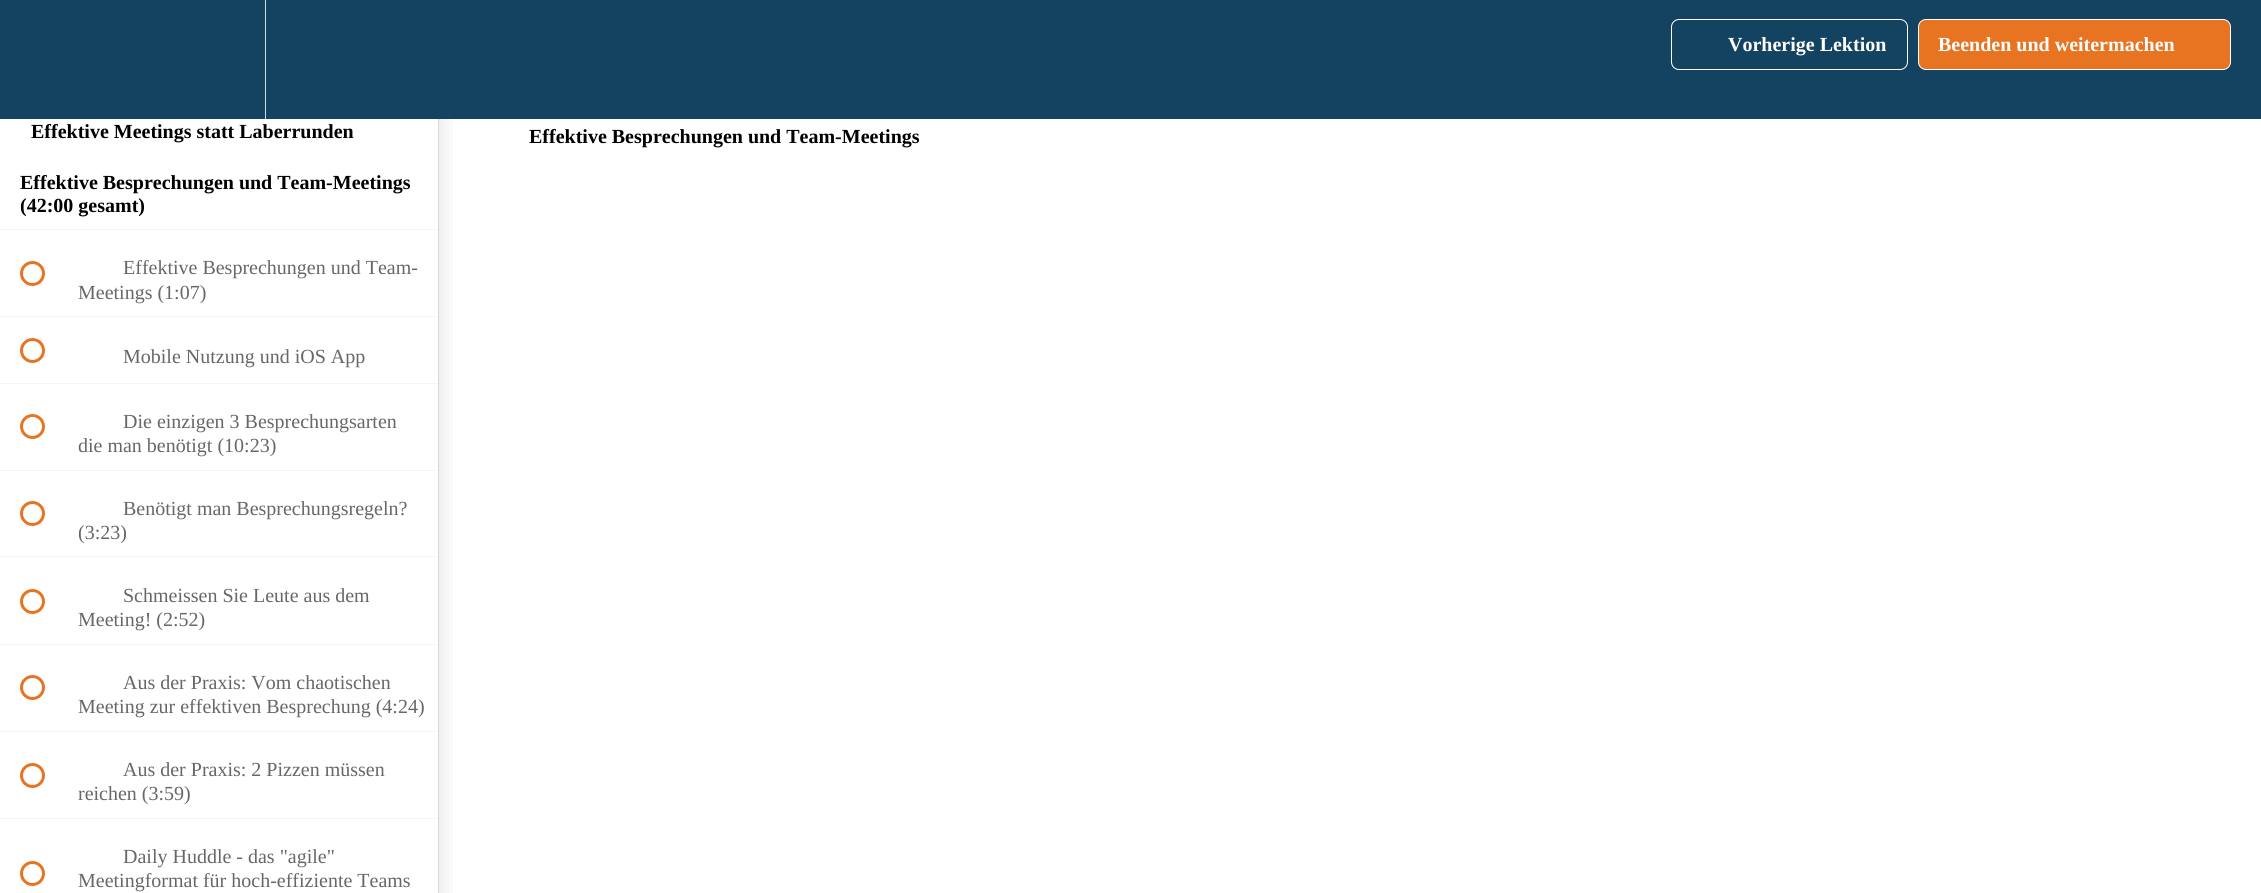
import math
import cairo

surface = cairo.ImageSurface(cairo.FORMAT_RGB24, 2261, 893)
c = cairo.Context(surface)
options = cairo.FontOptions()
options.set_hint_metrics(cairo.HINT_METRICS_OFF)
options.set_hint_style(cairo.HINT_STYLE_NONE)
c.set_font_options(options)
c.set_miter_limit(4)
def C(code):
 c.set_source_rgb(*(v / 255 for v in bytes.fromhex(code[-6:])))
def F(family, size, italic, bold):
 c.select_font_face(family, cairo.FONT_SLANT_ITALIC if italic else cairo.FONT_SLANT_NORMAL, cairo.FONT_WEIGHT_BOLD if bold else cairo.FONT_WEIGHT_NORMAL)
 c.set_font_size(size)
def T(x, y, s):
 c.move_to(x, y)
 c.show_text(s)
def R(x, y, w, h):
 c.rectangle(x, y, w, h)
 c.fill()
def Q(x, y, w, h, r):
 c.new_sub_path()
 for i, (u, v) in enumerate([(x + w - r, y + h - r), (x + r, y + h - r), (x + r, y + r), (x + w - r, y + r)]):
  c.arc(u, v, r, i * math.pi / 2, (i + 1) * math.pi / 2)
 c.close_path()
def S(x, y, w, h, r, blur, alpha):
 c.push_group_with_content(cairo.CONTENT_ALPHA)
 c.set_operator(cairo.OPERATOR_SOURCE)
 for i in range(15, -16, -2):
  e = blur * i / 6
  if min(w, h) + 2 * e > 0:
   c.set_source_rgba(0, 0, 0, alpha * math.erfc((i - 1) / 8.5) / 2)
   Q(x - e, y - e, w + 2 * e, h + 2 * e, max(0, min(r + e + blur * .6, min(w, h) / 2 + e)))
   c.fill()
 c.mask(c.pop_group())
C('ffffff')
c.paint()
c.save()
c.rectangle(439,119,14,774)
c.clip()
C('20272d')
S(0,96,439,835,0,12.5,.15)
c.restore()
C('134361')
R(0,0,2261,119)
C('d7dadb')
R(265,0,1,119)
Q(1671.5,19.5,236,50,7.5)
C('ffffff')
c.set_line_width(1)
c.stroke()
F('Liberation Serif',20,0,1)
T(1728,51,'Vorherige Lektion')
C('e87421')
Q(1918.5,19.5,312,50,7.5)
c.fill_preserve()
C('ffffff')
c.stroke()
T(1938,51,'Beenden und weitermachen')
C('d7dadb')
R(438,119,1,774)
C('000000')
T(31,138,'Effektive Meetings statt Laberrunden')
C('fdf1e9')
R(0,229,438,1)
C('000000')
T(20,189,'Effektive Besprechungen und Team-Meetings')
T(20,212,'(42:00 gesamt)')
C('fdf1e9')
R(0,316,438,1)
c.new_path()
c.arc(32.5,273.5,11,0,2 * math.pi)
C('e87421')
c.set_line_width(3)
c.stroke()
F('Liberation Serif',20,0,0)
C('676767')
T(123,274,'Effektive Besprechungen und Team-')
T(78,299,'Meetings (1:07)')
C('fdf1e9')
R(0,383,438,1)
c.new_path()
c.arc(32.5,350.5,11,0,2 * math.pi)
C('e87421')
c.stroke()
C('676767')
T(123,363,'Mobile Nutzung und iOS App')
C('fdf1e9')
R(0,470,438,1)
c.new_path()
c.arc(32.5,426.5,11,0,2 * math.pi)
C('e87421')
c.stroke()
C('676767')
T(123,428,'Die einzigen 3 Besprechungsarten')
T(78,452,'die man benötigt (10:23)')
C('fdf1e9')
R(0,556,438,1)
c.new_path()
c.arc(32.5,513.5,11,0,2 * math.pi)
C('e87421')
c.stroke()
C('676767')
T(123,515,'Benötigt man Besprechungsregeln?')
T(78,539,'(3:23)')
C('fdf1e9')
R(0,644,438,1)
c.new_path()
c.arc(32.5,601.5,11,0,2 * math.pi)
C('e87421')
c.stroke()
C('676767')
T(123,602,'Schmeissen Sie Leute aus dem')
T(78,626,'Meeting! (2:52)')
C('fdf1e9')
R(0,731,438,1)
c.new_path()
c.arc(32.5,687.5,11,0,2 * math.pi)
C('e87421')
c.stroke()
C('676767')
T(123,689,'Aus der Praxis: Vom chaotischen')
T(78,713,'Meeting zur effektiven Besprechung (4:24)')
C('fdf1e9')
R(0,818,438,1)
c.new_path()
c.arc(32.5,775.5,11,0,2 * math.pi)
C('e87421')
c.stroke()
C('676767')
T(123,776,'Aus der Praxis: 2 Pizzen müssen')
T(78,800,'reichen (3:59)')
c.new_path()
c.arc(32.5,873.5,11,0,2 * math.pi)
C('e87421')
c.stroke()
C('676767')
T(123,863,'Daily Huddle - das "agile"')
T(78,887,'Meetingformat für hoch-effiziente Teams')
F('Liberation Serif',20,0,1)
C('000000')
T(529,143,'Effektive Besprechungen und Team-Meetings')
surface.write_to_png('o.png')
